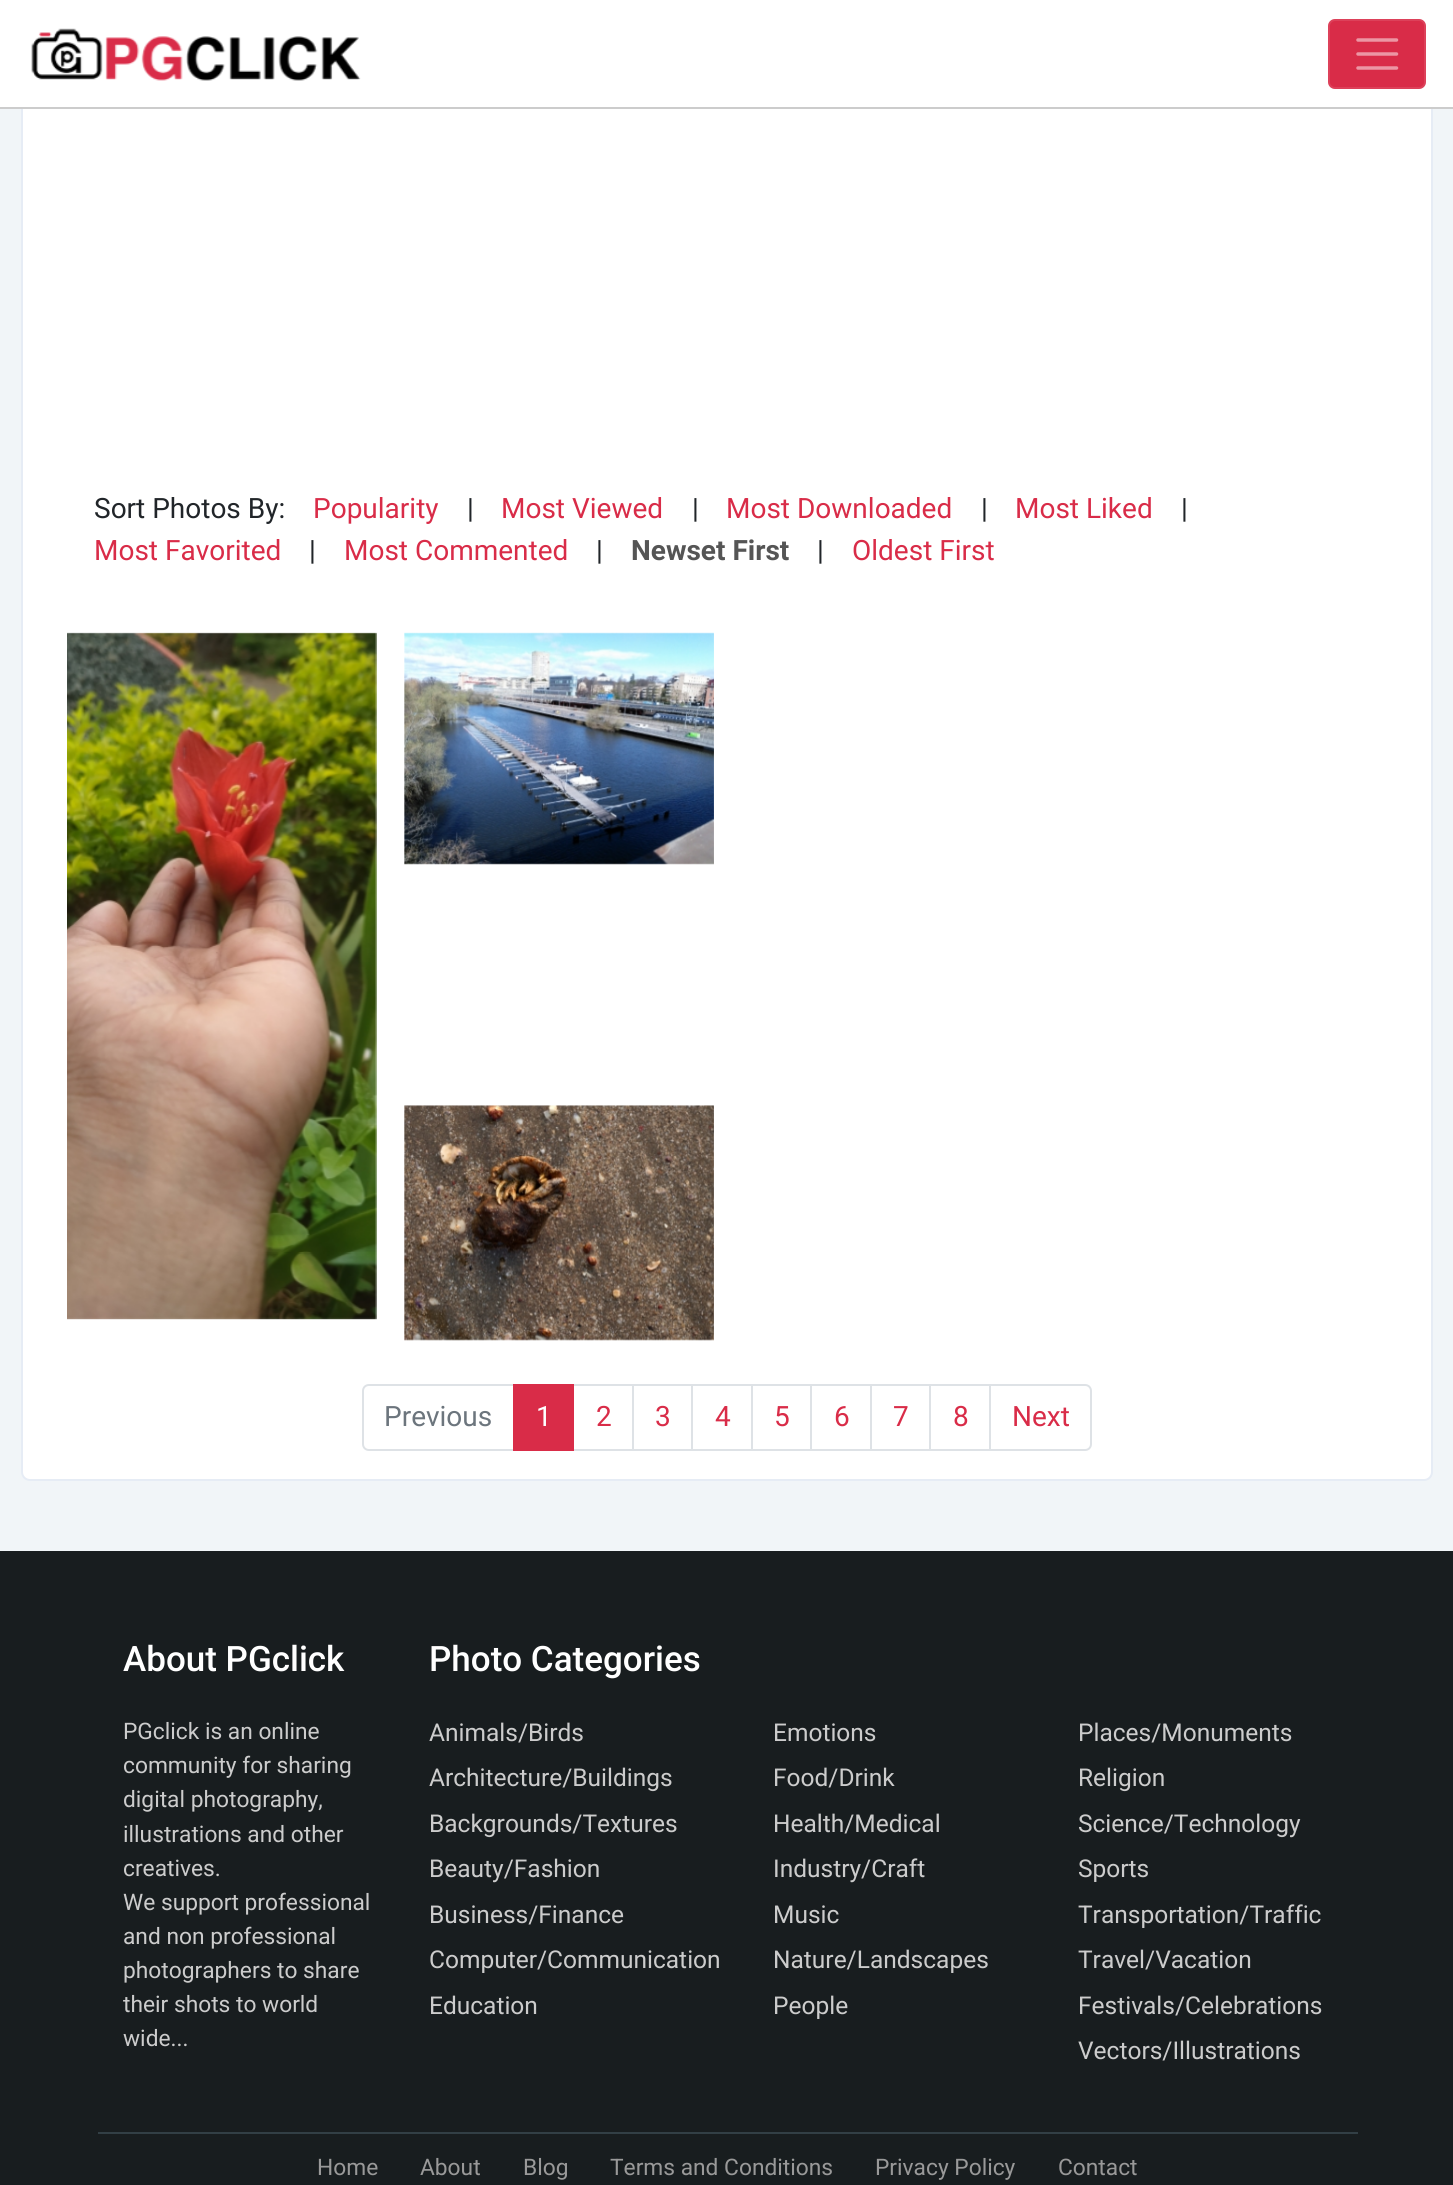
import math
import cairo

surface = cairo.ImageSurface(cairo.FORMAT_RGB24, 1453, 2185)
c = cairo.Context(surface)
options = cairo.FontOptions()
options.set_hint_metrics(cairo.HINT_METRICS_OFF)
options.set_hint_style(cairo.HINT_STYLE_NONE)
c.set_font_options(options)
c.set_miter_limit(4)
def C(code):
 c.set_source_rgb(*(v / 255 for v in bytes.fromhex(code[-6:])))
def F(family, size, italic, bold):
 c.select_font_face(family, cairo.FONT_SLANT_ITALIC if italic else cairo.FONT_SLANT_NORMAL, cairo.FONT_WEIGHT_BOLD if bold else cairo.FONT_WEIGHT_NORMAL)
 c.set_font_size(size)
def T(x, y, s):
 c.move_to(x, y)
 c.show_text(s)
def R(x, y, w, h):
 c.rectangle(x, y, w, h)
 c.fill()
def Q(x, y, w, h, r):
 c.new_sub_path()
 for i, (u, v) in enumerate([(x + w - r, y + h - r), (x + r, y + h - r), (x + r, y + r), (x + w - r, y + r)]):
  c.arc(u, v, r, i * math.pi / 2, (i + 1) * math.pi / 2)
 c.close_path()
def I(path, x, y, w, h):
 c.save()
 c.set_source_surface(cairo.ImageSurface.create_from_png(path), x, y)
 c.rectangle(x, y, w, h)
 c.fill()
 c.restore()
C('f1f5f8')
c.paint()
C('ffffff')
Q(22,-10,1410,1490,8)
c.fill_preserve()
C('e6ecf5')
c.stroke()
C('ffffff')
R(0,0,1453,107)
C('cccccc')
R(0,107,1453,2)
I('1.png',31,28,330,53)
C('d92c48')
Q(1328,19,98,70,7)
c.fill()
Q(1329,20,96,68,6)
c.set_source_rgba(1,1,1,0.1)
c.stroke()
c.new_path()
c.move_to(1358,40)
c.line_to(1396.5,40)
c.move_to(1358,54)
c.line_to(1396.5,54)
c.move_to(1358,68)
c.line_to(1396.5,68)
C('ec96a4')
c.set_line_width(3.5)
c.set_line_cap(cairo.LINE_CAP_ROUND)
c.stroke()
F('Roboto',28,0,0)
C('212529')
T(94,518,'Sort Photos By:')
C('d92c48')
T(313,518,'Popularity')
C('212529')
T(467,518,'|')
C('d92c48')
T(501,518,'Most Viewed')
C('212529')
T(692,518,'|')
C('d92c48')
T(726,518,'Most Downloaded')
C('212529')
T(981,518,'|')
C('d92c48')
T(1015,518,'Most Liked')
C('212529')
T(1181,518,'|')
C('d92c48')
T(94,560,'Most Favorited')
C('212529')
T(309,560,'|')
C('d92c48')
T(344,560,'Most Commented')
C('212529')
T(596,560,'|')
F('Roboto',28,0,1)
C('555555')
T(631,560,'Newset First')
F('Roboto',28,0,0)
C('212529')
T(817,560,'|')
C('d92c48')
T(852,560,'Oldest First')
I('2.png',67,632,310,688)
I('3.png',404,632,310,233)
I('4.png',404,1105,310,236)
c.new_path()
c.move_to(369,1385)
c.line_to(514,1385)
c.line_to(514,1450)
c.line_to(369,1450)
c.curve_to(365.5,1450,363,1447.5,363,1444)
c.line_to(363,1391)
c.curve_to(363,1387.5,365.5,1385,369,1385)
c.close_path()
C('dee2e6')
c.set_line_width(2)
c.set_line_cap(cairo.LINE_CAP_BUTT)
c.stroke()
C('6c757d')
T(384,1426,'Previous')
c.rectangle(573,1385,60,65)
C('dee2e6')
c.stroke()
C('d92c48')
R(513,1384,61,67)
C('ffffff')
T(536,1426,'1')
C('d92c48')
T(596,1426,'2')
c.rectangle(633,1385,59,65)
C('dee2e6')
c.stroke()
C('d92c48')
T(655,1426,'3')
c.rectangle(692,1385,60,65)
C('dee2e6')
c.stroke()
C('d92c48')
T(715,1426,'4')
c.rectangle(752,1385,59,65)
C('dee2e6')
c.stroke()
C('d92c48')
T(774,1426,'5')
c.rectangle(811,1385,60,65)
C('dee2e6')
c.stroke()
C('d92c48')
T(834,1426,'6')
c.rectangle(871,1385,59,65)
C('dee2e6')
c.stroke()
C('d92c48')
T(893,1426,'7')
c.rectangle(930,1385,60,65)
C('dee2e6')
c.stroke()
C('d92c48')
T(953,1426,'8')
C('ffffff')
c.new_path()
c.move_to(990,1385)
c.line_to(1085,1385)
c.curve_to(1088.5,1385,1091,1387.5,1091,1391)
c.line_to(1091,1444)
c.curve_to(1091,1447.5,1088.5,1450,1085,1450)
c.line_to(990,1450)
c.close_path()
c.fill_preserve()
C('dee2e6')
c.stroke()
C('d92c48')
T(1012,1426,'Next')
C('181d1f')
R(0,1551,1453,634)
C('323f45')
R(98,2132,1260,2)
F('Roboto Medium',35,0,0)
C('ffffff')
T(123,1671,'About PGclick')
F('Roboto',22.75,0,0)
C('cccccc')
T(123,1739,'PGclick is an online')
T(123,1773,'community for sharing')
T(123,1807,'digital photography,')
T(123,1842,'illustrations and other')
T(123,1876,'creatives.')
T(123,1910,'We support professional')
T(123,1944,'and non professional')
T(123,1978,'photographers to share')
T(123,2012,'their shots to world')
T(123,2046,'wide...')
F('Roboto Medium',35,0,0)
C('ffffff')
T(429,1671,'Photo Categories')
F('Roboto',24.5,0,0)
C('cccccc')
T(429,1741,'Animals/Birds')
T(429,1786,'Architecture/Buildings')
T(429,1832,'Backgrounds/Textures')
T(429,1877,'Beauty/Fashion')
T(429,1923,'Business/Finance')
T(429,1968,'Computer/Communication')
T(429,2014,'Education')
T(773,1741,'Emotions')
T(773,1786,'Food/Drink')
T(773,1832,'Health/Medical')
T(773,1877,'Industry/Craft')
T(773,1923,'Music')
T(773,1968,'Nature/Landscapes')
T(773,2014,'People')
T(1078,1741,'Places/Monuments')
T(1078,1786,'Religion')
T(1078,1832,'Science/Technology')
T(1078,1877,'Sports')
T(1078,1923,'Transportation/Traffic')
T(1078,1968,'Travel/Vacation')
T(1078,2014,'Festivals/Celebrations')
T(1078,2059,'Vectors/Illustrations')
F('Roboto',22.75,0,0)
C('999999')
T(317,2175,'Home')
T(420,2175,'About')
T(523,2175,'Blog')
T(610,2175,'Terms and Conditions')
T(875,2175,'Privacy Policy')
T(1058,2175,'Contact')
surface.write_to_png('o.png')
